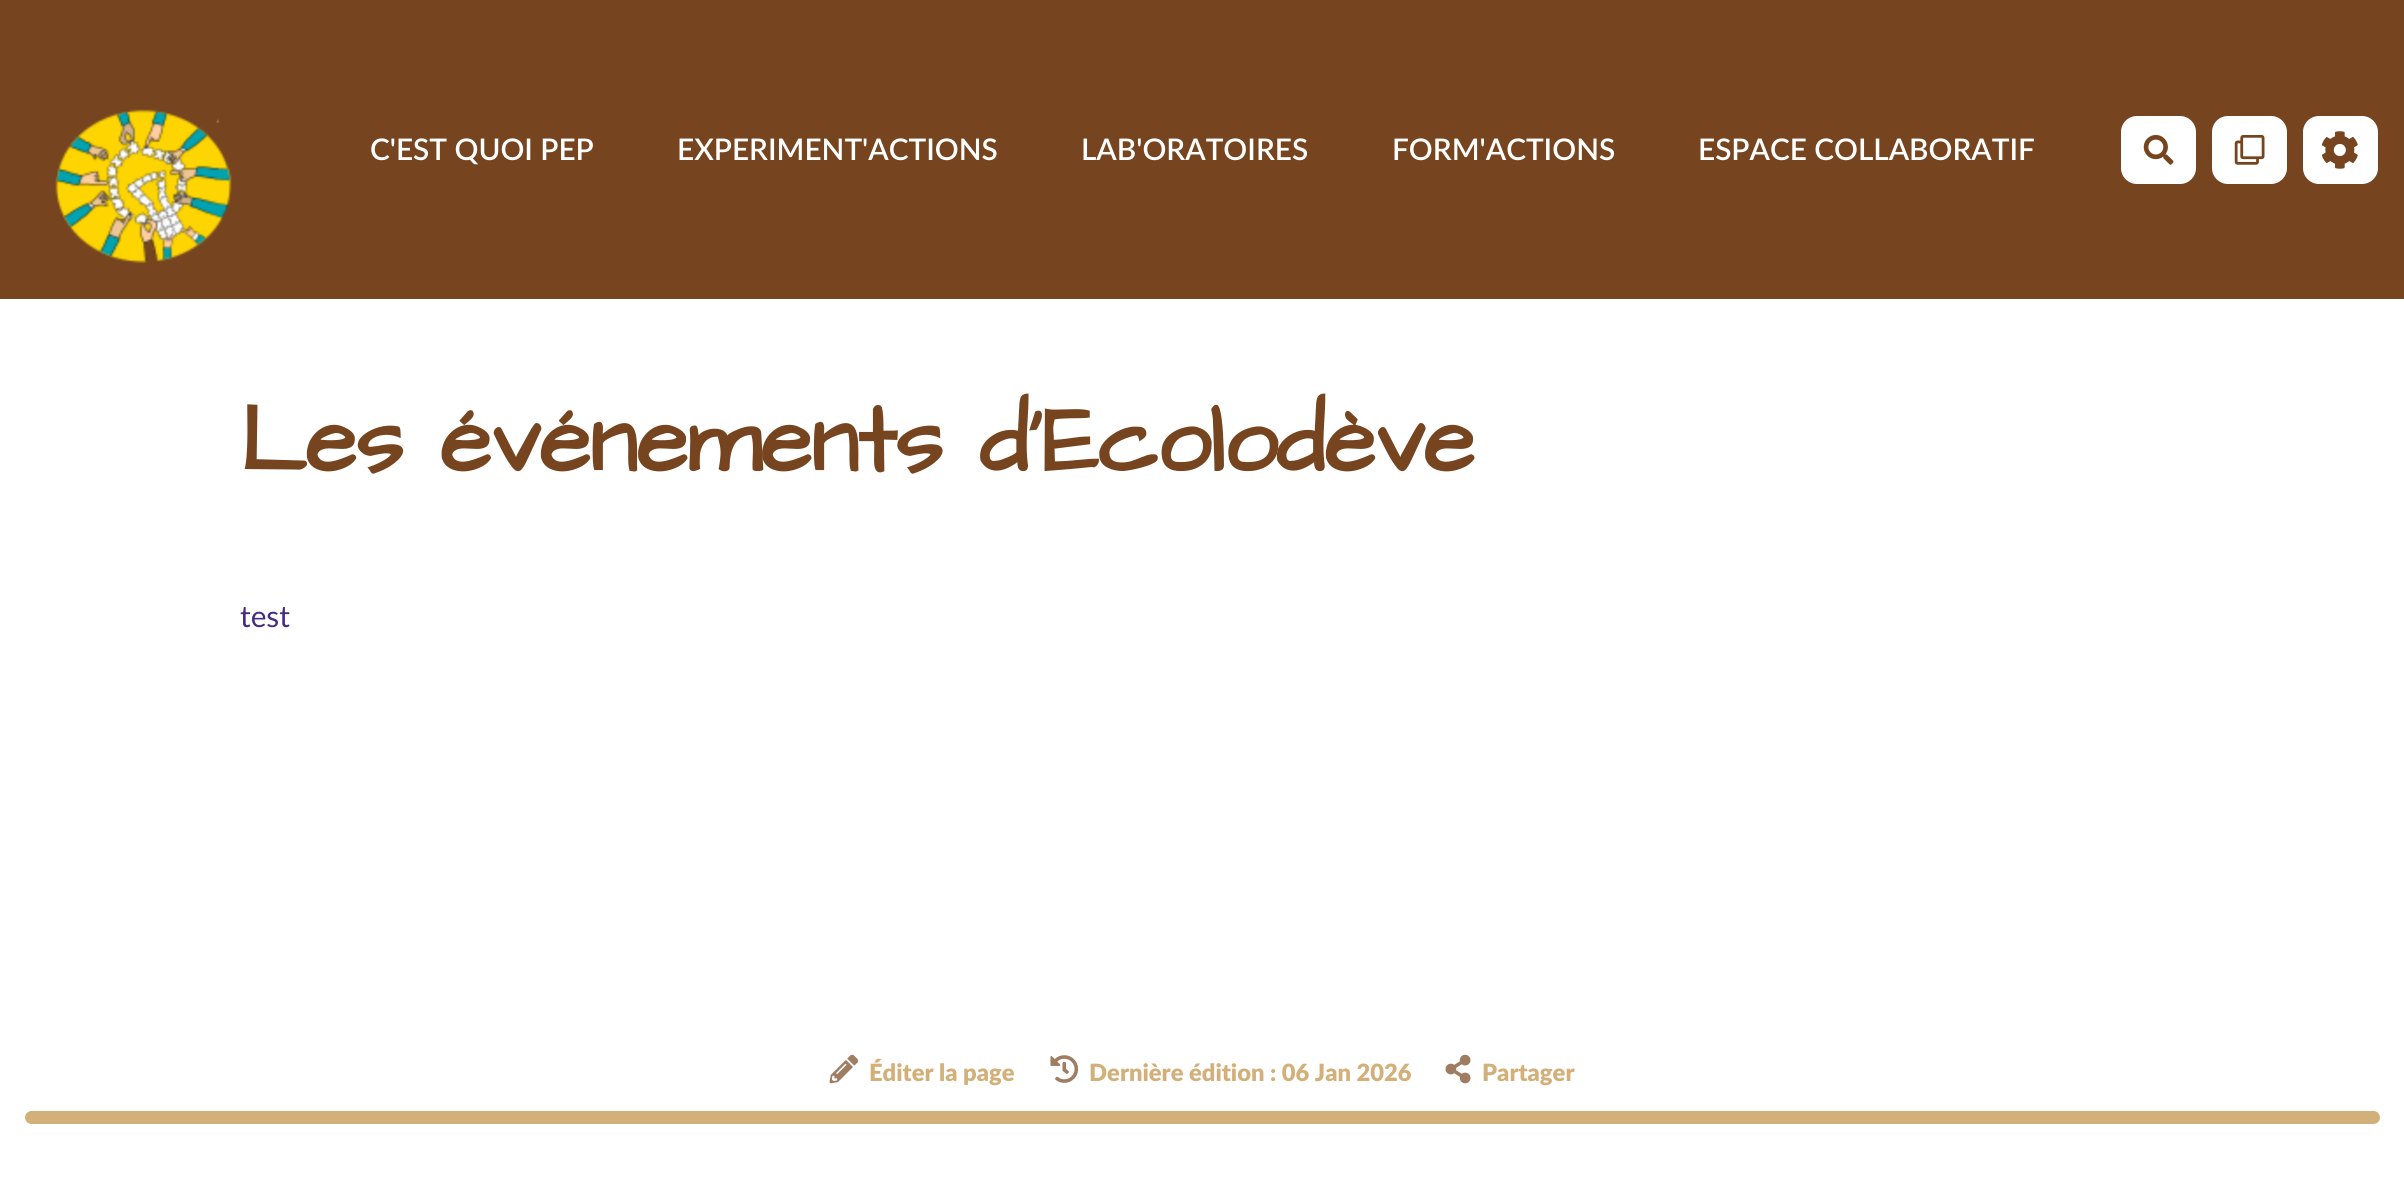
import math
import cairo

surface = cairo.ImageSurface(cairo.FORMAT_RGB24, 2404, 1199)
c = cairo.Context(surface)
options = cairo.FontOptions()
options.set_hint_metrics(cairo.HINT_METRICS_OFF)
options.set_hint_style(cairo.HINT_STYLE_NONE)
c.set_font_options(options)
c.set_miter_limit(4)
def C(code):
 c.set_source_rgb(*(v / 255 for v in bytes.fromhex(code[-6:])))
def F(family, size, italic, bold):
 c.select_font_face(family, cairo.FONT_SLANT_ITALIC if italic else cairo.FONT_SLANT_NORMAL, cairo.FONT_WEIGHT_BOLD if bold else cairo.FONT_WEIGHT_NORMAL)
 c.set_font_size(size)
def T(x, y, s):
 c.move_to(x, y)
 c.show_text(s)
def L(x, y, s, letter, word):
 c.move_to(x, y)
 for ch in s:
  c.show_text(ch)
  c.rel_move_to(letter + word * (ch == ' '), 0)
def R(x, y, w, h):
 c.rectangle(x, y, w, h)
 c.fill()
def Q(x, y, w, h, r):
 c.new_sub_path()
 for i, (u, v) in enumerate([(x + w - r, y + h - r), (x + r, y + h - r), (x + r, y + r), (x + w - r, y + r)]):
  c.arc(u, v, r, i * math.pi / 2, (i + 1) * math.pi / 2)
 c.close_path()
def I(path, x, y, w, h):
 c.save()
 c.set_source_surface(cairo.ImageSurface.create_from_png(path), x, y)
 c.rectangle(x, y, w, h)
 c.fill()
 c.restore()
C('ffffff')
c.paint()
C('764520')
R(0,0,2404,299)
I('1.png',55,109,177,155)
F('Lato SemiBold',29.75,0,0)
C('ffffff')
T(370,160,'C\'EST QUOI PEP')
T(677,160,'EXPERIMENT\'ACTIONS')
T(1081,160,'LAB\'ORATOIRES')
T(1392,160,'FORM\'ACTIONS')
T(1698,160,'ESPACE COLLABORATIF')
Q(2121,116,75,68,16)
c.fill()
I('2.png',2143,135,31,30)
Q(2212,116,75,68,16)
c.fill()
I('3.png',2234,135,31,30)
Q(2303,116,75,68,16)
c.fill()
I('4.png',2321,131,37,38)
F('Architects Daughter',95.25,0,1)
C('764520')
L(240,471,'Les événements d\'Ecolodève',-.9,0)
F('Lato',29.75,0,0)
C('452d82')
T(240,627,'test')
I('5.png',829,1054,30,30)
F('Lato ExtraBold',23.75,0,0)
C('d3af79')
T(869,1081,'Éditer la page')
I('6.png',1050,1055,29,28)
T(1089,1081,'Dernière édition : 06 Jan 2026')
I('7.png',1445,1054,26,30)
T(1482,1081,'Partager')
Q(25,1111,2355,13,6.5)
c.fill()
surface.write_to_png('o.png')
